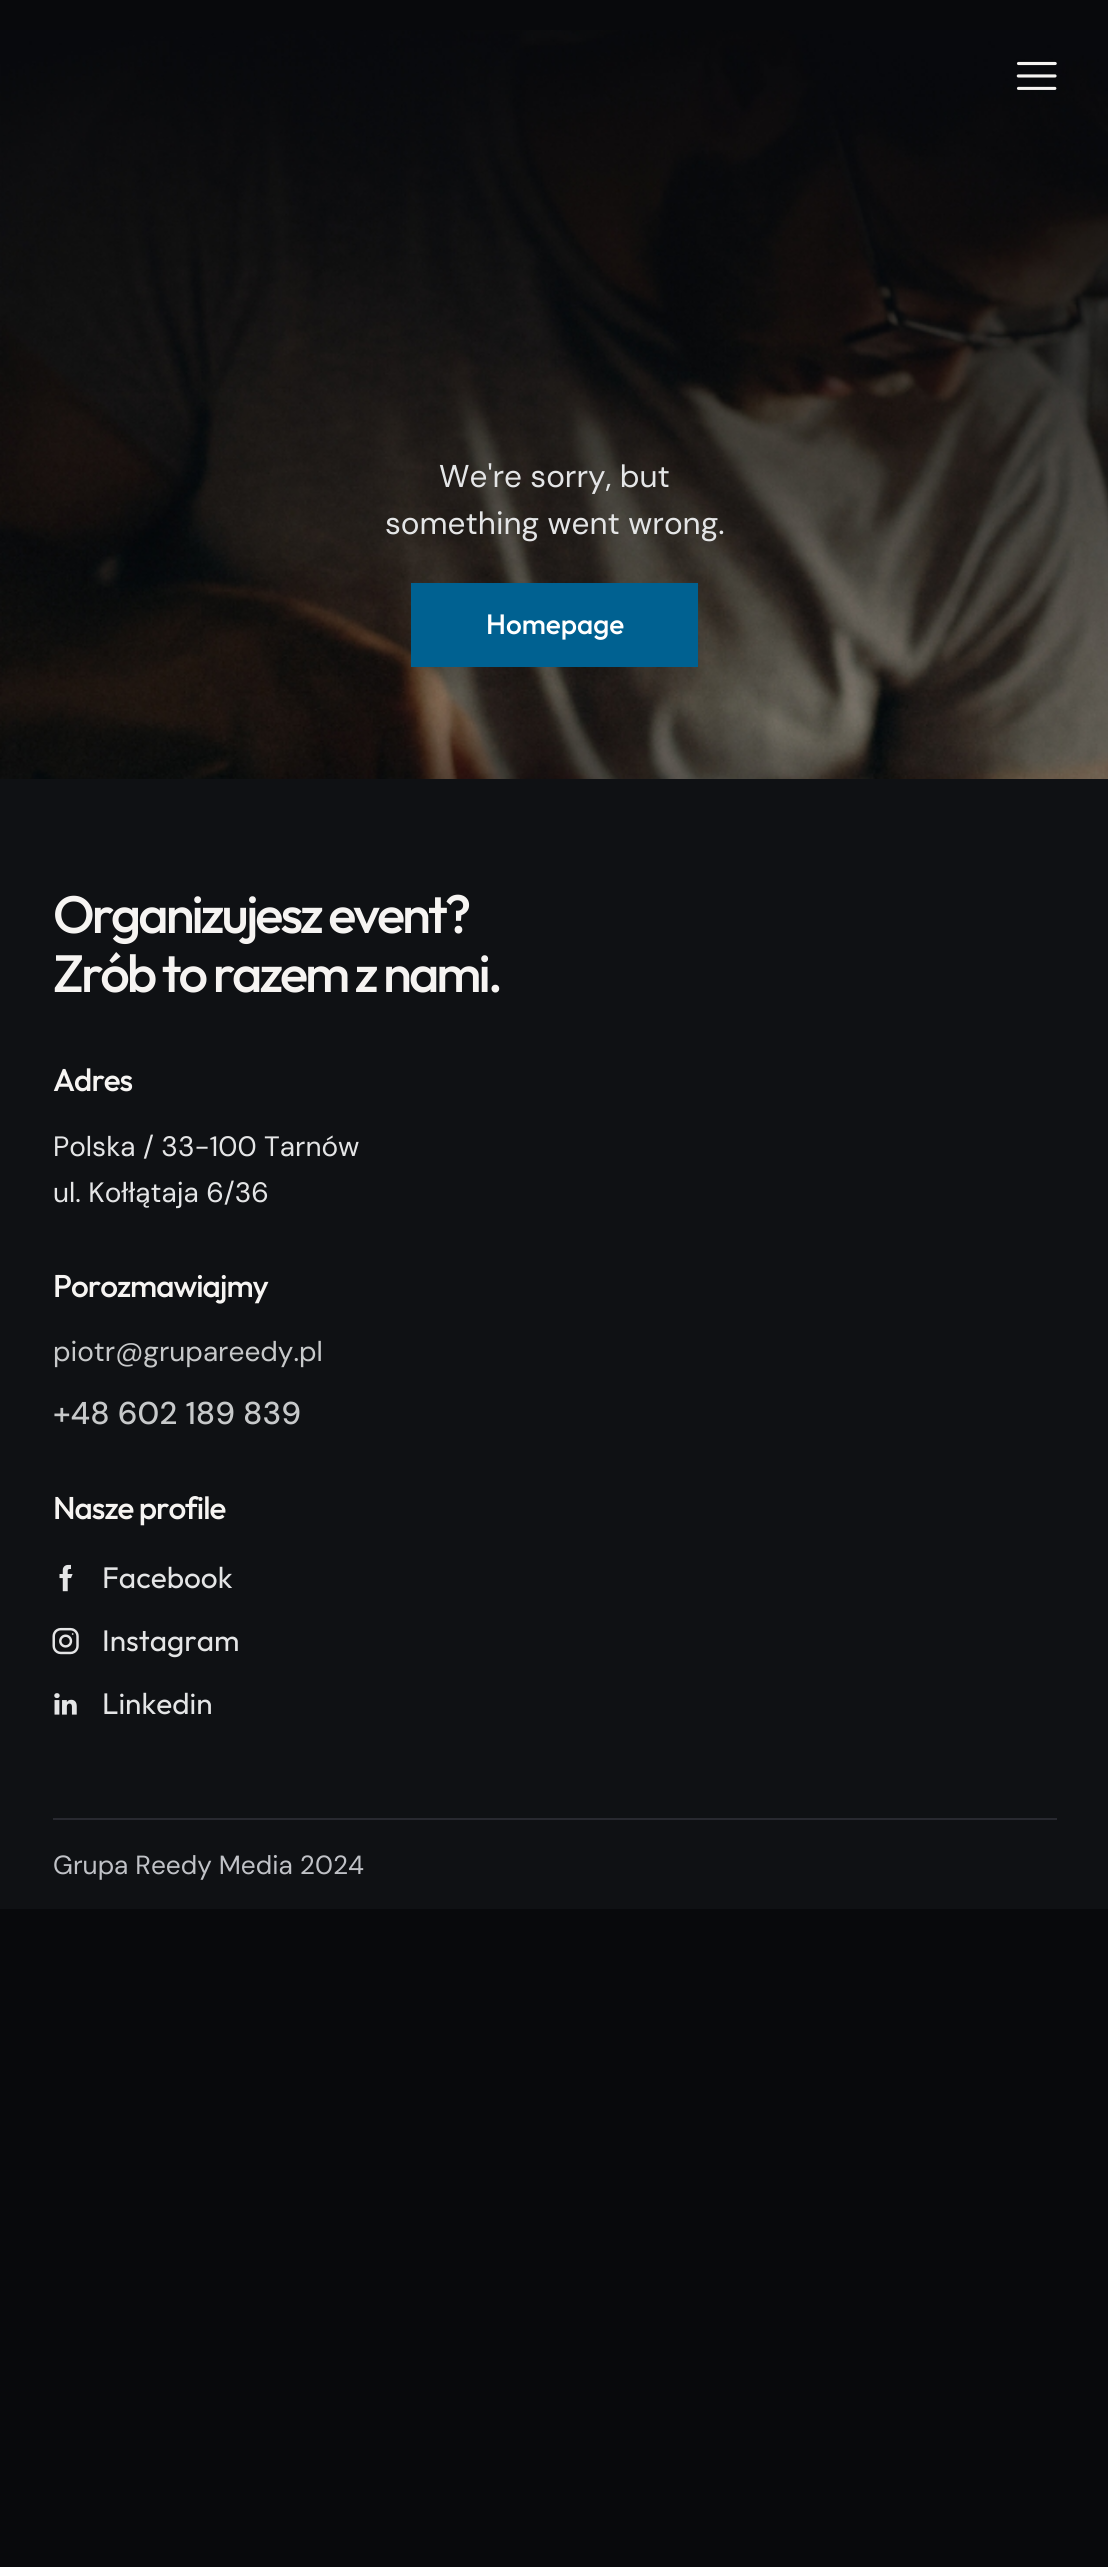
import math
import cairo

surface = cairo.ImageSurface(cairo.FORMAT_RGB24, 1108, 2567)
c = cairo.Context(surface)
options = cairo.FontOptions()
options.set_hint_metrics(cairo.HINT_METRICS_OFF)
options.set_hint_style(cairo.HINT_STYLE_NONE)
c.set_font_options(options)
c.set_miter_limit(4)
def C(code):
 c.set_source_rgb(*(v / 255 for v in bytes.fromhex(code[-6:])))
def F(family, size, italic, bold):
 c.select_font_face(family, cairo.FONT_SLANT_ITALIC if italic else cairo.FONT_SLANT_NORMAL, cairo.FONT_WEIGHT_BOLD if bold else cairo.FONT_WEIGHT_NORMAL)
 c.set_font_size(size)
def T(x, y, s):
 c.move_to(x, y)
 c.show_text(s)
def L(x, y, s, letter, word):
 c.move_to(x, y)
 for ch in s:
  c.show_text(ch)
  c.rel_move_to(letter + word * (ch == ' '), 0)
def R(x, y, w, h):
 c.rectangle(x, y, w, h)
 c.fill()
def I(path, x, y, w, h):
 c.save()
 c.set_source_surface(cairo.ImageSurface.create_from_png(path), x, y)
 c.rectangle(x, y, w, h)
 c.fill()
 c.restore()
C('08090c')
c.paint()
I('1.png',0,30,1108,749)
I('2.png',1016,61,41,29)
F('DM Sans',31.5,0,0)
C('e4e5e6')
T(439,487,'We\'re sorry, but')
T(385,534,'something went wrong.')
C('006191')
R(411,583,287,84)
F('Outfit Medium',28,0,0)
C('ffffff')
T(486,634,'Homepage')
C('0f1114')
R(0,779,1108,1130)
F('Outfit Medium',52.5,0,0)
C('f6f4f2')
L(53,933,'Organizujesz event?',-3,0)
L(53,992,'Zrób to razem z nami.',-3,0)
F('Outfit Medium',31.5,0,0)
L(53,1091,'Adres',-1,0)
F('DM Sans',28,0,0)
C('e4e5e6')
T(53,1156,'Polska / 33-100 Tarnów')
T(53,1202,'ul. Kołłątaja 6/36')
F('Outfit Medium',31.5,0,0)
C('f6f4f2')
L(53,1297,'Porozmawiajmy',-1,0)
F('DM Sans',28,0,0)
C('c7c9ca')
T(53,1361,'piotr@grupareedy.pl')
F('DM Sans Medium',31.5,0,0)
T(53,1424,'+48 602 189 839')
F('Outfit Medium',31.5,0,0)
C('f6f4f2')
L(53,1519,'Nasze profile',-1,0)
I('3.png',59,1564,14,28)
F('Outfit',29.75,0,0)
C('e4e5e6')
T(102,1588,'Facebook')
I('4.png',52,1627,27,28)
T(102,1651,'Instagram')
I('5.png',54,1693,23,22)
T(102,1714,'Linkedin')
C('282930')
R(53,1818,1004,2)
F('DM Sans',26.25,0,0)
C('c0c2c7')
T(53,1874,'Grupa Reedy Media 2024')
surface.write_to_png('o.png')
